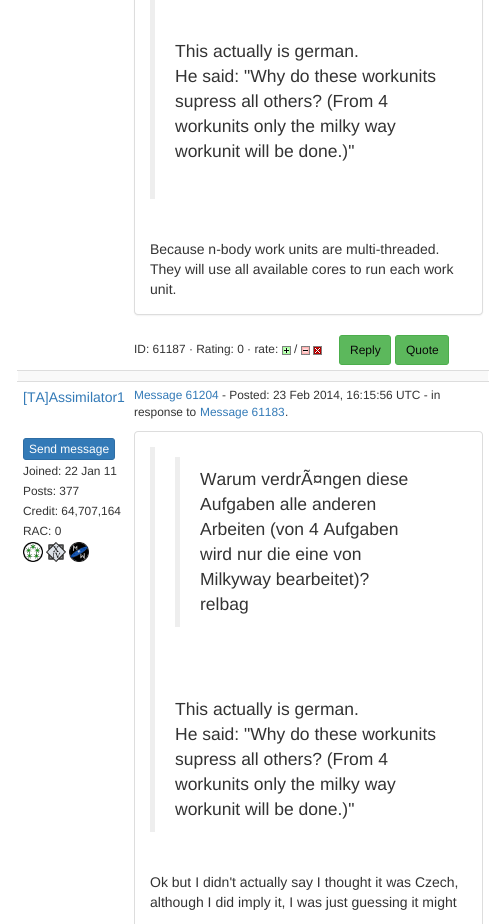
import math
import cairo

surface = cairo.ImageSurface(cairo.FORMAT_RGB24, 503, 924)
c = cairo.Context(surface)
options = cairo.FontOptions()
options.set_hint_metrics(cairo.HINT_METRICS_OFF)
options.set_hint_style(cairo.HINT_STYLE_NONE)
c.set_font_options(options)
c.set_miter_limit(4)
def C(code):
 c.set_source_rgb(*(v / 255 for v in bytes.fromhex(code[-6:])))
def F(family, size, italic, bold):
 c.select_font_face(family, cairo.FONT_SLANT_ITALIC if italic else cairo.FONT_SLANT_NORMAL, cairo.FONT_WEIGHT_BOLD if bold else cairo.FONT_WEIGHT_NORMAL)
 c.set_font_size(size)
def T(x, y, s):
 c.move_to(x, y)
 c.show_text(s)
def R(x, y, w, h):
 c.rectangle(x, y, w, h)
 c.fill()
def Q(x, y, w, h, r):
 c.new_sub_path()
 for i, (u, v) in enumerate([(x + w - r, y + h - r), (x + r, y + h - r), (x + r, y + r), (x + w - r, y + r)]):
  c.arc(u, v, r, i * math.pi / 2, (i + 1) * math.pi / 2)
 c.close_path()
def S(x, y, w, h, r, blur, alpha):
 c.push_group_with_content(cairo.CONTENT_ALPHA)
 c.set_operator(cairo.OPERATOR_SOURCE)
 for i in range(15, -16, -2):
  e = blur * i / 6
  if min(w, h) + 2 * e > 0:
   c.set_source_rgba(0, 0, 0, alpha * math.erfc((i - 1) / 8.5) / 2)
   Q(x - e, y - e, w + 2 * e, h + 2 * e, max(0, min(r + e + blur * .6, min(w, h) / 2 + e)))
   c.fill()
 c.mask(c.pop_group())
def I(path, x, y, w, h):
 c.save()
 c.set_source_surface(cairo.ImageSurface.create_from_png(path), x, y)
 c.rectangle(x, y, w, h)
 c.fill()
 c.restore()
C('ffffff')
c.paint()
C('000000')
S(134,-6,349,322,4,.5,.05)
C('ffffff')
Q(134.5,-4.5,348,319,3.5)
c.fill_preserve()
C('dddddd')
c.set_line_width(1)
c.stroke()
C('eeeeee')
R(150,0,5,199)
F('Liberation Sans',17.5,0,0)
C('333333')
T(175,57,'This actually is german.')
T(175,82,'He said: "Why do these workunits')
T(175,107,'supress all others? (From 4')
T(175,132,'workunits only the milky way')
T(175,157,'workunit will be done.)"')
F('Liberation Sans',14,0,0)
T(150,254,'Because n-body work units are multi-threaded.')
T(150,274,'They will use all available cores to run each work')
T(150,294,'unit.')
F('Liberation Sans',11.9,0,0)
T(134,353,'ID: 61187 · Rating: 0 · rate:')
I('1.png',282,346,9,9)
T(294,353,'/')
I('2.png',301,346,9,9)
I('3.png',313,346,9,9)
C('5cb85c')
Q(339.5,335.5,51,29,2.5)
c.fill_preserve()
C('4cae4c')
c.stroke()
F('Liberation Sans',12,0,0)
C('080808')
T(350,354,'Reply')
C('5cb85c')
Q(395.5,335.5,53,29,2.5)
c.fill_preserve()
C('4cae4c')
c.stroke()
C('080808')
T(406,354,'Quote')
C('f9f9f9')
R(18,371,470,10)
C('dddddd')
R(17,370,472,1)
F('Liberation Sans',14,0,0)
C('337ab7')
T(23,402,'[TA]Assimilator1')
Q(23.5,438.5,91,21,2.5)
c.fill_preserve()
C('2e6da4')
c.stroke()
F('Liberation Sans',12,0,0)
C('ffffff')
T(29,453,'Send message')
F('Liberation Sans',11.9,0,0)
C('333333')
T(23,475,'Joined: 22 Jan 11')
T(23,495,'Posts: 377')
T(23,515,'Credit: 64,707,164')
T(23,535,'RAC: 0')
I('4.png',23,542,20,20)
I('5.png',46,542,20,20)
I('6.png',69,542,20,20)
C('dddddd')
R(17,381,472,1)
C('337ab7')
T(134,399,'Message 61204')
C('333333')
T(222,399,'- Posted: 23 Feb 2014, 16:15:56 UTC - in')
T(134,416,'response to')
C('337ab7')
T(200,416,'Message 61183')
C('333333')
T(285,416,'.')
Q(134.5,431.5,348,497,3.5)
C('dddddd')
c.stroke()
C('eeeeee')
R(150,447,5,385)
R(175,457,5,170)
F('Liberation Sans',17.5,0,0)
C('333333')
T(200,485,'Warum verdrÃ¤ngen diese')
T(200,510,'Aufgaben alle anderen')
T(200,535,'Arbeiten (von 4 Aufgaben')
T(200,560,'wird nur die eine von')
T(200,585,'Milkyway bearbeitet)?')
T(200,610,'relbag')
T(175,715,'This actually is german.')
T(175,740,'He said: "Why do these workunits')
T(175,765,'supress all others? (From 4')
T(175,790,'workunits only the milky way')
T(175,815,'workunit will be done.)"')
F('Liberation Sans',14,0,0)
T(150,887,'Ok but I didn\'t actually say I thought it was Czech,')
T(150,907,'although I did imply it, I was just guessing it might')
surface.write_to_png('o.png')
